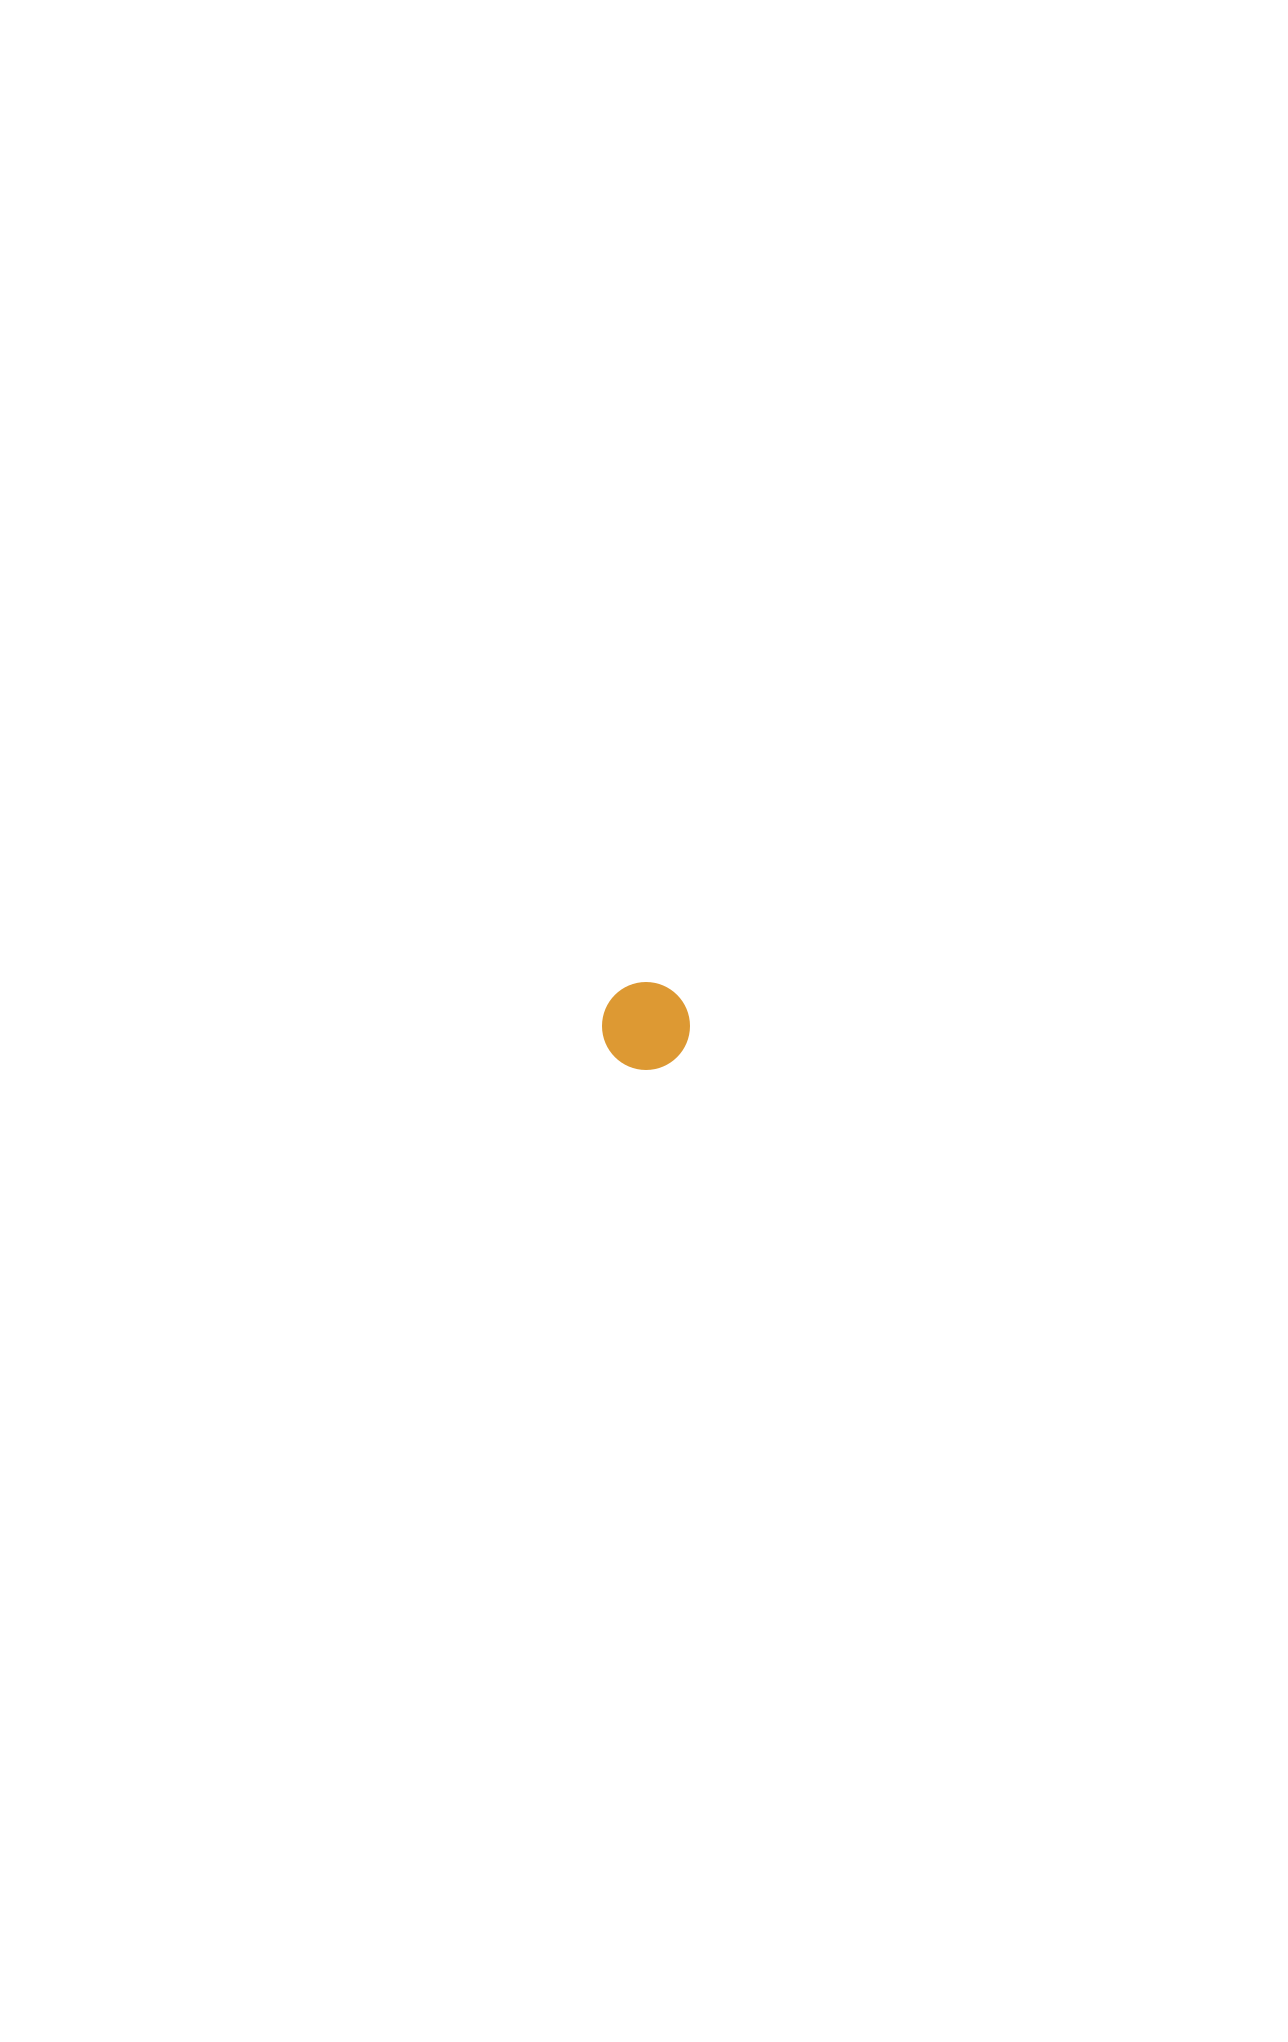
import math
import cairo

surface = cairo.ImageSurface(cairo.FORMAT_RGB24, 1288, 2042)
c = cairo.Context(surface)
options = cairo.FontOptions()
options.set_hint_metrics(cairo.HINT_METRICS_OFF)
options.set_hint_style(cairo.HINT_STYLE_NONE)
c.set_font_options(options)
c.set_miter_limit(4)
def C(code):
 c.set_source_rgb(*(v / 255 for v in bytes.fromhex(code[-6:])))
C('ffffff')
c.paint()
C('dd9933')
c.arc(646,1026,44,0,2 * math.pi)
c.fill()
surface.write_to_png('o.png')
